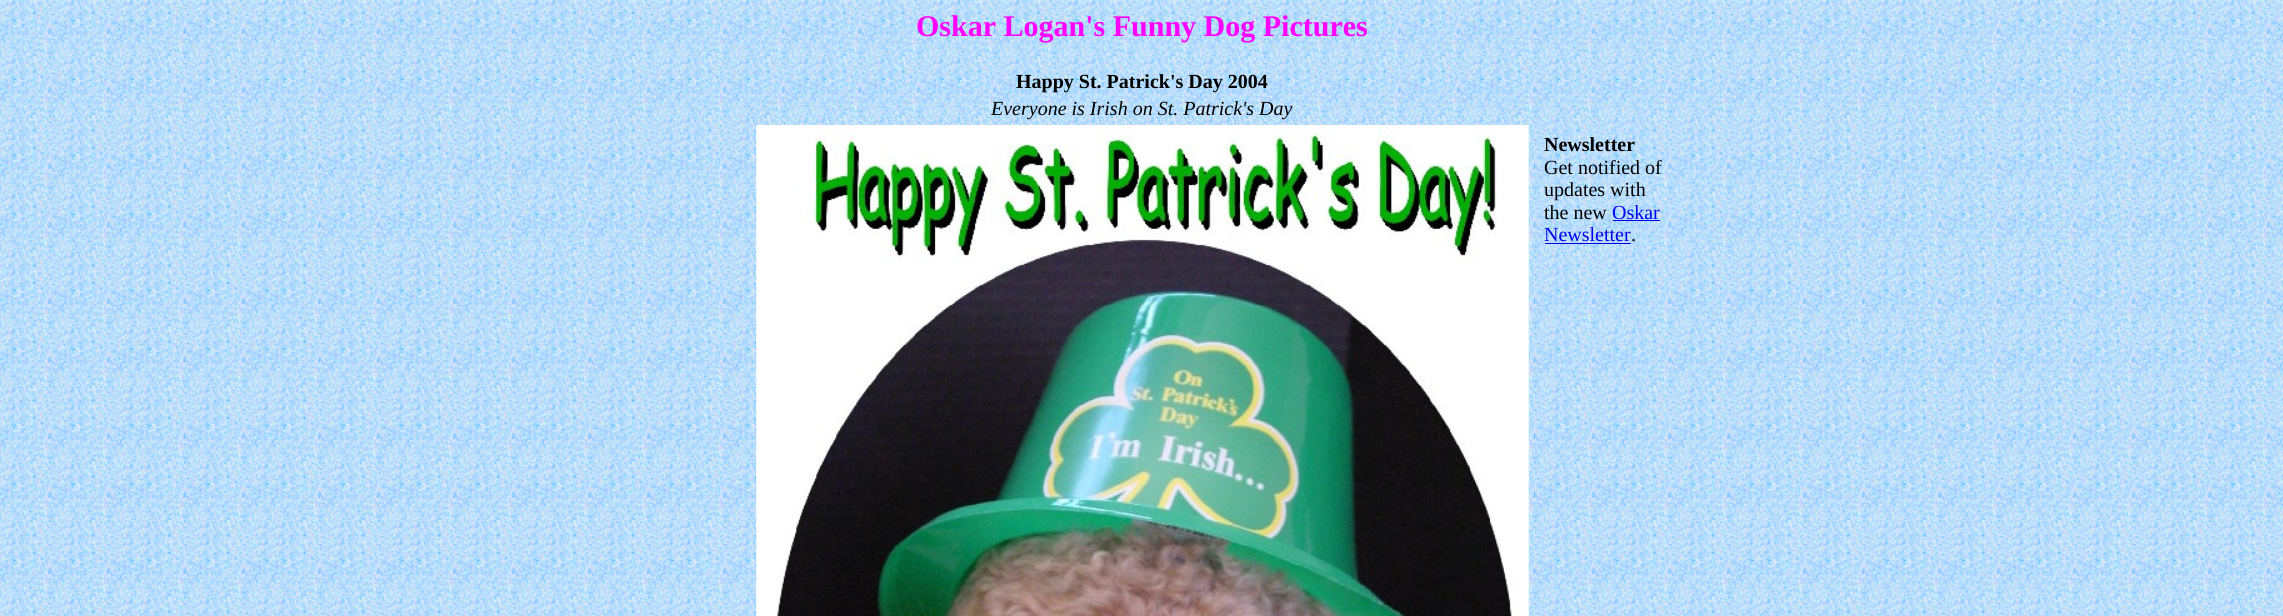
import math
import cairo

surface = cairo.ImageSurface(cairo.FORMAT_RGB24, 2283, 616)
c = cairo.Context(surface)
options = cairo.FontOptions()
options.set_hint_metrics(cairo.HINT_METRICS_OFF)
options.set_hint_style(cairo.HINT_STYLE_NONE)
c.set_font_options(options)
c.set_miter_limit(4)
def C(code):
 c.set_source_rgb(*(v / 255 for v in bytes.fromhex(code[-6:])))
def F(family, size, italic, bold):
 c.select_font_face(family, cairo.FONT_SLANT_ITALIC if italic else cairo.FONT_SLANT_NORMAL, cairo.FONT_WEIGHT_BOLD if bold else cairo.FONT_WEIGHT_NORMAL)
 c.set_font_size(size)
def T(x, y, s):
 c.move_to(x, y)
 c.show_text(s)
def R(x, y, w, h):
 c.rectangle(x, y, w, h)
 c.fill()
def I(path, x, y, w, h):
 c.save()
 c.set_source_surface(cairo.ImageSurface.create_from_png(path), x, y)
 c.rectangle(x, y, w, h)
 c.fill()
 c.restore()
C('ffffff')
c.paint()
I('1.png',0,0,2283,616)
F('Liberation Serif',30,0,1)
C('ff00ff')
T(916,36,'Oskar Logan\'s Funny Dog Pictures')
F('Liberation Serif',20,0,1)
C('000000')
T(1016,88,'Happy St. Patrick\'s Day 2004')
F('Liberation Serif',20,1,0)
T(991,115,'Everyone is Irish on St. Patrick\'s Day')
I('2.png',756,125,773,491)
F('Liberation Serif',20,0,1)
T(1544,151,'Newsletter')
F('Liberation Serif',20,0,0)
T(1544,174,'Get notified of')
T(1544,196,'updates with')
T(1544,219,'the new')
C('0000ee')
T(1612,219,'Oskar')
R(1613,220,47,1)
T(1544,241,'Newsletter')
R(1545,243,86,1)
C('000000')
T(1631,241,'.')
surface.write_to_png('o.png')
